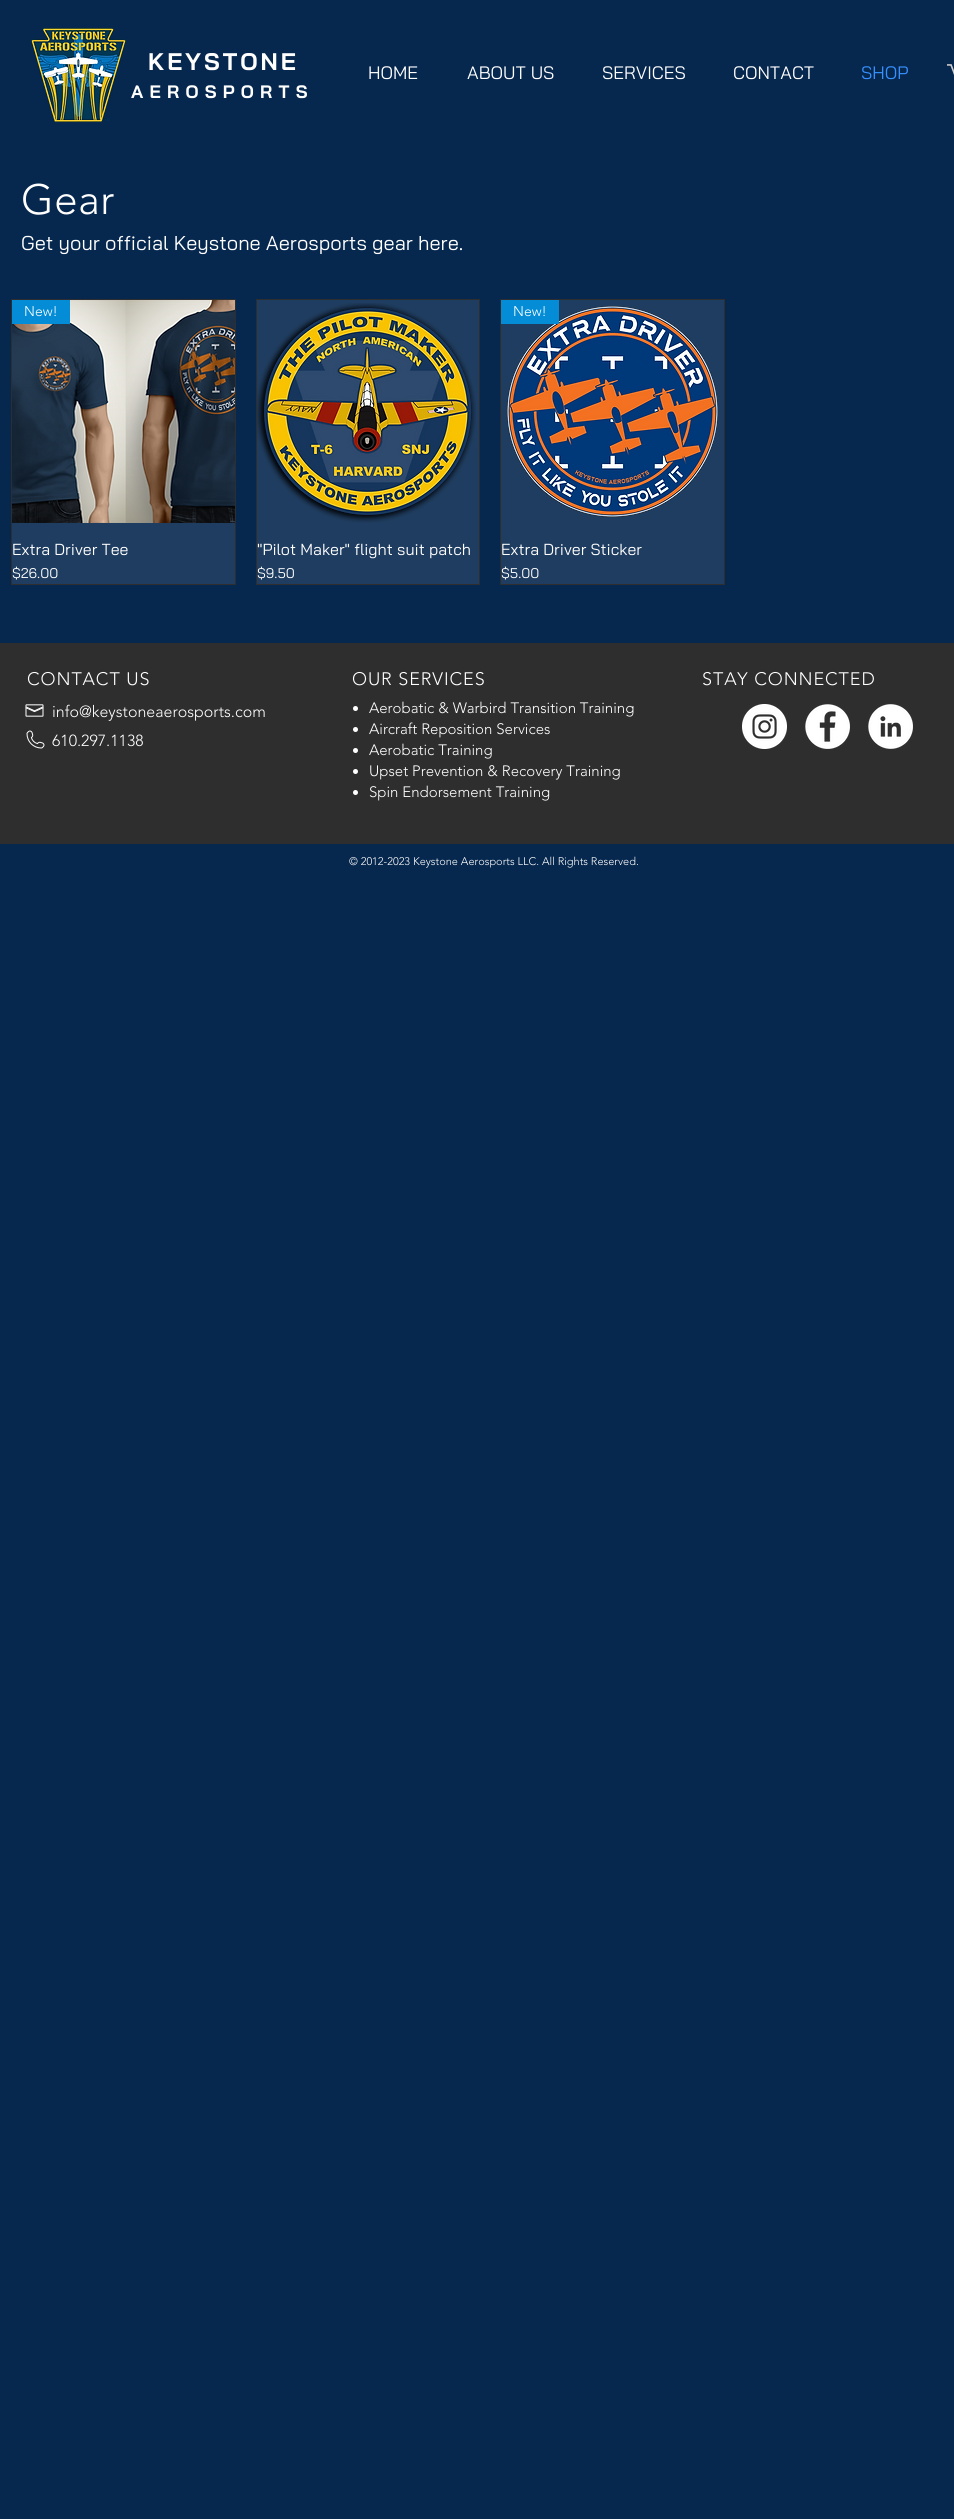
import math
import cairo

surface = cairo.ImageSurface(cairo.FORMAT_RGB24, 954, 2519)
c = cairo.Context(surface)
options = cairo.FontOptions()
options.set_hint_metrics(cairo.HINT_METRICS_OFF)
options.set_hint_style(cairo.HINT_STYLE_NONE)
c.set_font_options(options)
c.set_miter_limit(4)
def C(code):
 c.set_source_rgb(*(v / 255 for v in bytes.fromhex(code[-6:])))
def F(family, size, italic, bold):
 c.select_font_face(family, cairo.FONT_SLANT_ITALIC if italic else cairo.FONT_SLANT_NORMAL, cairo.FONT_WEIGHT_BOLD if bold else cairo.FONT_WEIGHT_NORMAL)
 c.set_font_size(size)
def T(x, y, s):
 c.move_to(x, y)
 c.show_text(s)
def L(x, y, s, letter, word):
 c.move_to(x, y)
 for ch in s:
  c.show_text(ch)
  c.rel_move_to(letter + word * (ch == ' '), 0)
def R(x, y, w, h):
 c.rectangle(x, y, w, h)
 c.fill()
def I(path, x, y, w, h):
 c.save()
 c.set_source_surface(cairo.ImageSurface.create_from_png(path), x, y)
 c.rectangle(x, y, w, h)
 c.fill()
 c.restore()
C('06274e')
c.paint()
I('1.png',31,28,95,94)
F('Bai Jamjuree',24,0,1)
C('ffffff')
L(148,70,'KEYSTONE',3,0)
F('Bai Jamjuree',18,0,1)
L(131,98,'AEROSPORTS',6.25,0)
F('Bai Jamjuree',18,0,0)
T(368,79,'HOME')
T(467,79,'ABOUT US')
T(602,79,'SERVICES')
T(733,79,'CONTACT')
C('3790fd')
T(861,79,'SHOP')
I('2.png',947,64,7,11)
F('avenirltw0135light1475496 Light',42,0,0)
C('ffffff')
L(21,214,'Gear',.5,0)
F('Bai Jamjuree',20,0,0)
T(21,250,'Get your official Keystone Aerosports gear here.')
C('1f3d60')
c.rectangle(11.5,299.5,224,285)
c.fill_preserve()
C('2f2e2e')
c.set_line_width(1)
c.stroke()
I('3.png',12,300,223,223)
C('048dd6')
R(12,300,58,24)
F('avenirltw0135light1475496 Light',14,0,0)
C('ffffff')
T(24,316,'New!')
F('Bai Jamjuree',16,0,0)
T(12,555,'Extra Driver Tee')
F('Bai Jamjuree',14,0,0)
T(12,578,'$26.00')
C('1f3d60')
c.rectangle(256.5,299.5,223,285)
c.fill_preserve()
C('2f2e2e')
c.stroke()
I('4.png',257,303,219,220)
F('Bai Jamjuree',16,0,0)
C('ffffff')
T(257,555,'"Pilot Maker" flight suit patch')
F('Bai Jamjuree',14,0,0)
T(257,578,'$9.50')
C('1f3d60')
c.rectangle(500.5,299.5,224,285)
c.fill_preserve()
C('2f2e2e')
c.stroke()
I('5.png',506,305,213,213)
C('048dd6')
R(501,300,58,24)
F('avenirltw0135light1475496 Light',14,0,0)
C('ffffff')
T(513,316,'New!')
F('Bai Jamjuree',16,0,0)
T(501,555,'Extra Driver Sticker')
F('Bai Jamjuree',14,0,0)
T(501,578,'$5.00')
C('2f2e2e')
R(0,643,954,201)
F('avenirltw0135light1475496 Light',18,0,0)
C('ffffff')
L(27,685,'CONTACT US',.9,0)
L(352,685,'OUR SERVICES',.9,0)
c.new_path()
c.arc(355.5,708.5,2.5,0,2 * math.pi)
c.fill()
F('avenirltw0135light1475496 Light',15,0,0)
T(369,713,'Aerobatic & Warbird Transition Training')
c.new_path()
c.arc(355.5,729.5,2.5,0,2 * math.pi)
c.fill()
T(369,734,'Aircraft Reposition Services')
c.new_path()
c.arc(355.5,750.5,2.5,0,2 * math.pi)
c.fill()
T(369,755,'Aerobatic Training')
c.new_path()
c.arc(355.5,771.5,2.5,0,2 * math.pi)
c.fill()
T(369,776,'Upset Prevention & Recovery Training')
c.new_path()
c.arc(355.5,792.5,2.5,0,2 * math.pi)
c.fill()
T(369,797,'Spin Endorsement Training')
F('avenirltw0135light1475496 Light',18,0,0)
L(702,685,'STAY CONNECTED',.9,0)
I('6.png',25,704,19,13)
F('avenirltw0135light1475496 Light',16,0,0)
T(52,717,'info@keystoneaerosports.com')
T(52,746,'610.297.1138')
I('7.png',26,730,19,19)
I('8.png',742,704,45,45)
I('9.png',805,704,45,45)
I('10.png',868,704,45,45)
F('avenirltw0135light1475496 Light',11,0,0)
T(349,865,'© 2012-2023 Keystone Aerosports LLC. All Rights Reserved.')
surface.write_to_png('o.png')
